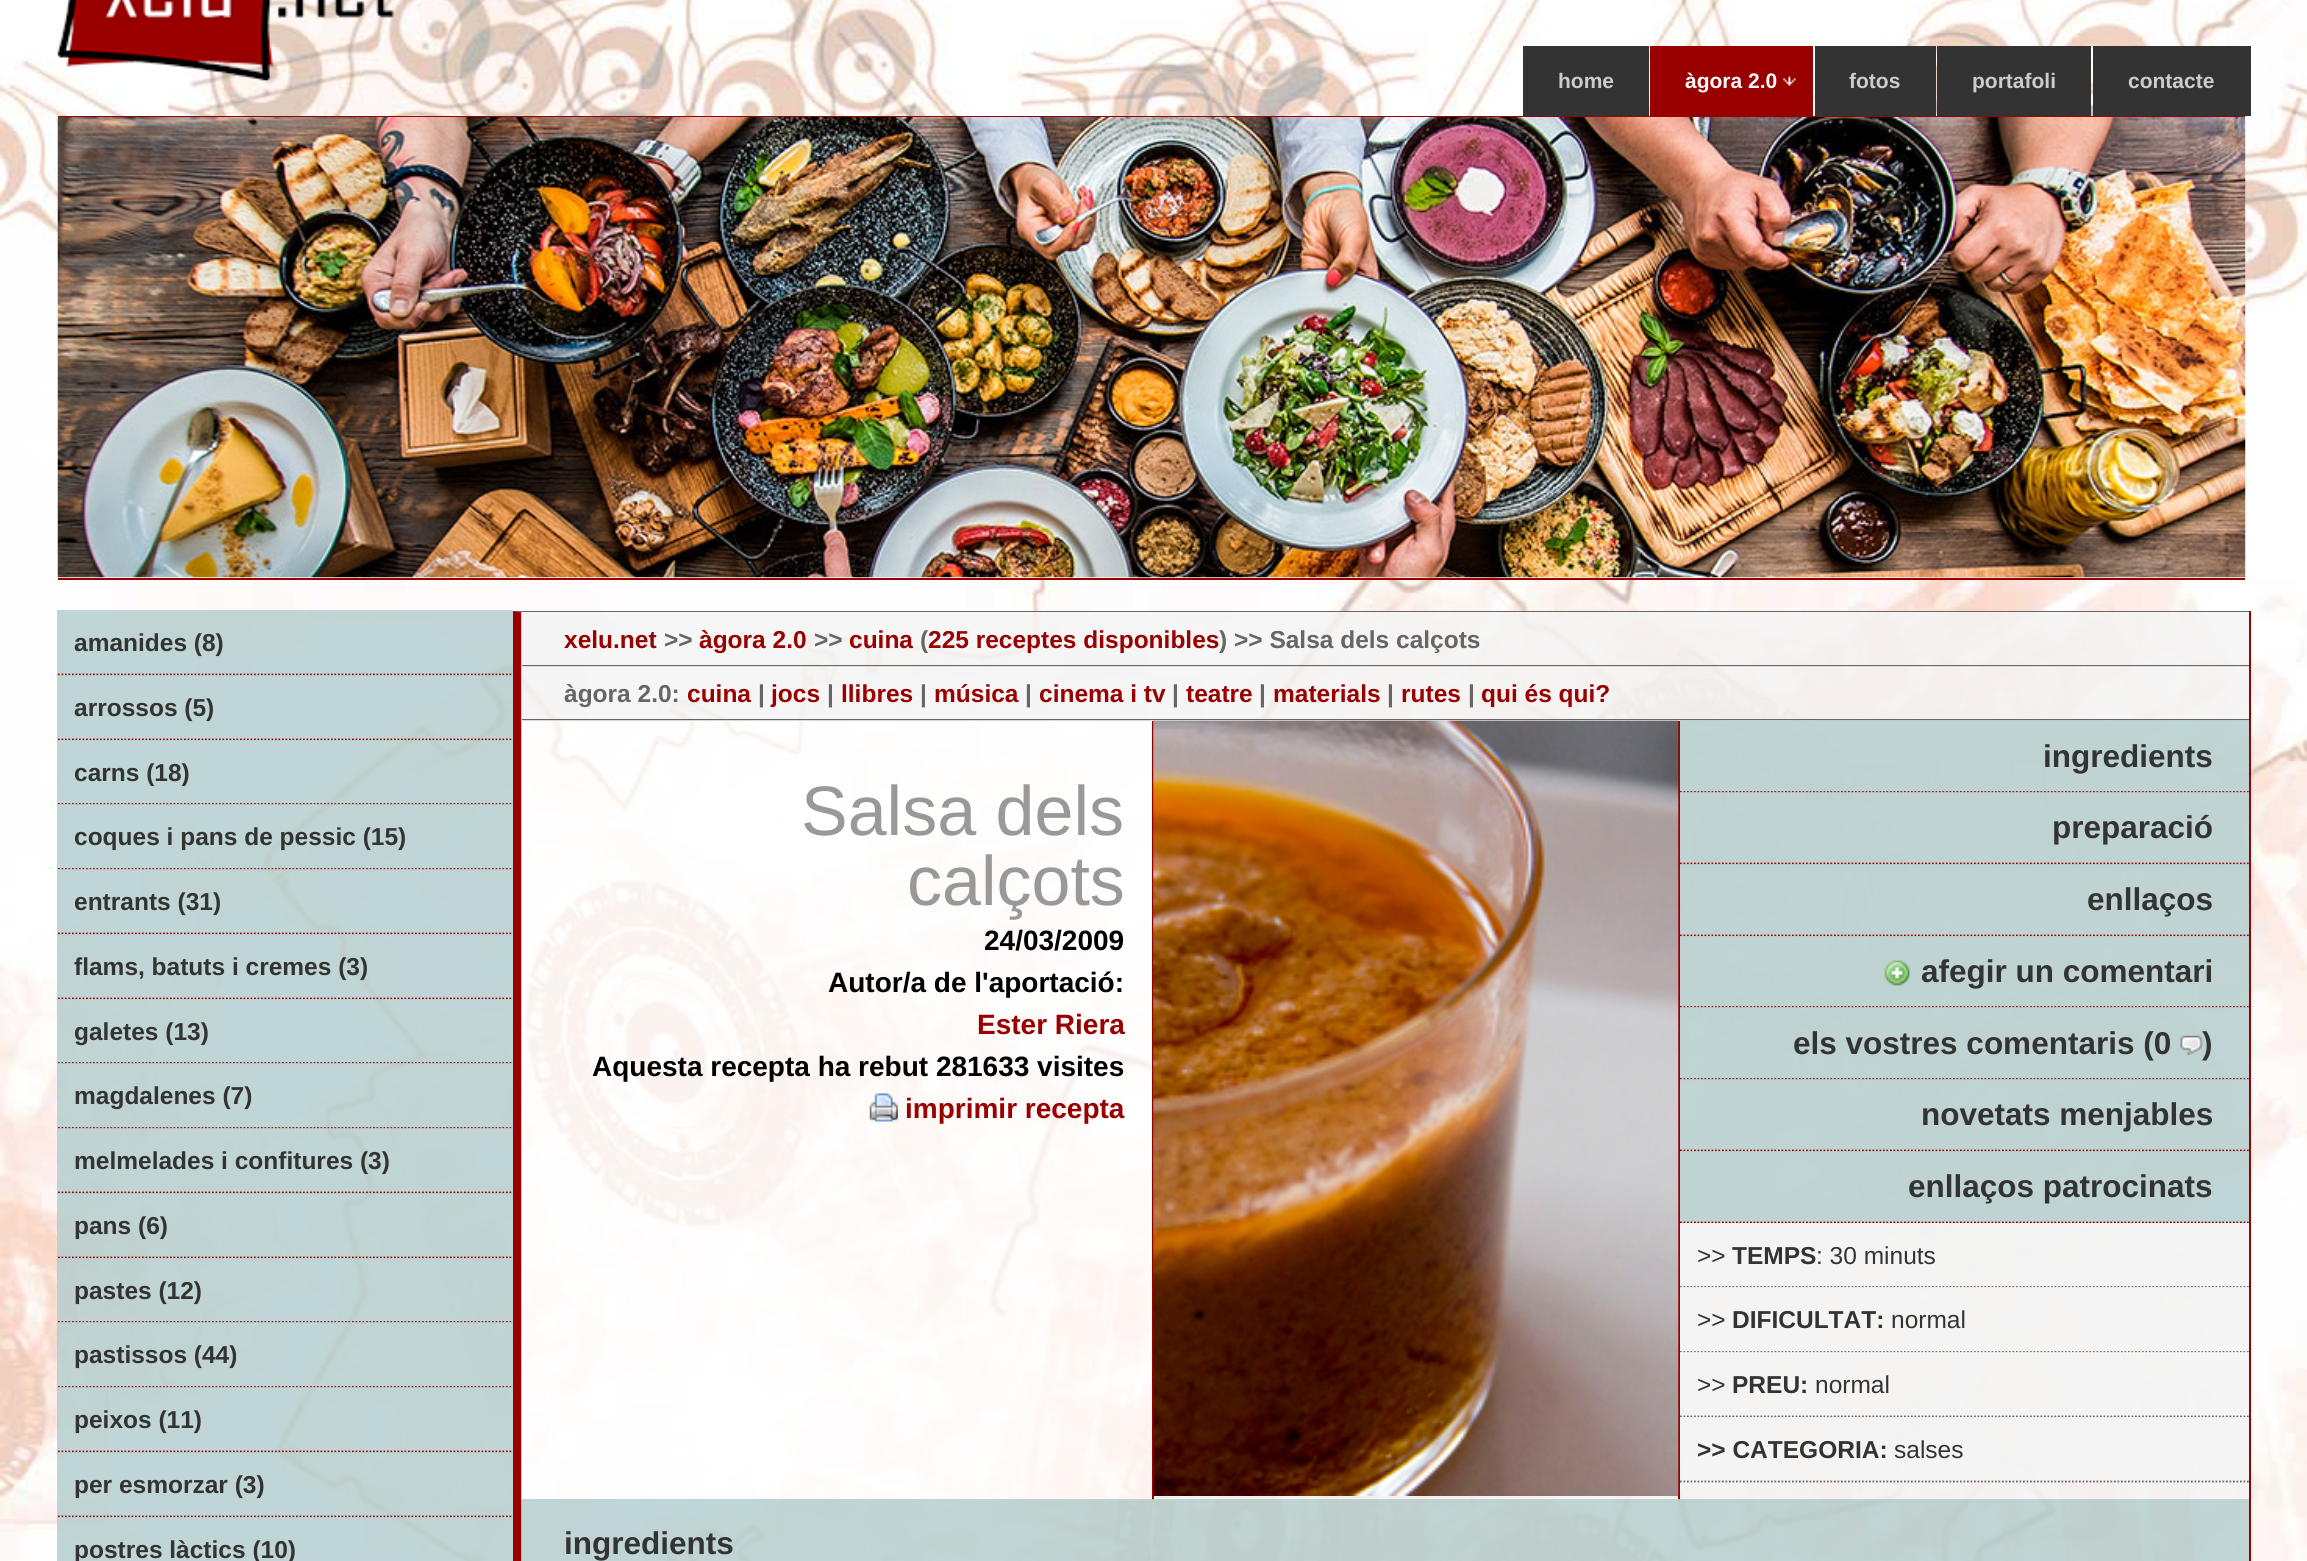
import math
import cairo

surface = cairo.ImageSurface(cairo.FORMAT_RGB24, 2307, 1561)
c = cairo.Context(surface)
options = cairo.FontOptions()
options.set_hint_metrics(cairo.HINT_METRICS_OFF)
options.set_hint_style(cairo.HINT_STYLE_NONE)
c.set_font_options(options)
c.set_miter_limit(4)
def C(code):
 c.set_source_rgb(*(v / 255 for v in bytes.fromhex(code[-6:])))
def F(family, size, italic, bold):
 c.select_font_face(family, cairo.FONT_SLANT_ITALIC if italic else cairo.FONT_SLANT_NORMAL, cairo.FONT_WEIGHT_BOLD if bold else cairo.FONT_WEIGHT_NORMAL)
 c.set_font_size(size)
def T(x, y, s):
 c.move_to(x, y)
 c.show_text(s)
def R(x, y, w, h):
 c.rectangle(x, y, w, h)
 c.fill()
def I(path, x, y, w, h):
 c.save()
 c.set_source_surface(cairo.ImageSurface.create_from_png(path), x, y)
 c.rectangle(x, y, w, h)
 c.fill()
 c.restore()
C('ffffff')
c.paint()
I('1.png',0,0,2307,1561)
I('2.png',57,0,338,81)
C('333333')
R(1523,46,126,70)
F('Liberation Sans',21,0,1)
C('cccccc')
T(1558,88,'home')
C('990000')
R(1650,46,163,70)
I('3.png',1782,76,14,10)
C('ffffff')
T(1685,88,'àgora 2.0')
C('333333')
R(1815,46,121,70)
C('cccccc')
T(1849,88,'fotos')
C('333333')
R(1937,46,154,70)
C('cccccc')
T(1972,88,'portafoli')
C('333333')
R(2093,46,158,70)
C('cccccc')
T(2128,88,'contacte')
C('990000')
R(58,116,2187,1)
I('4.png',57,117,2189,461)
R(58,578,2187,2)
c.set_source_rgba(0.71,0.808,0.808,0.85)
R(57,610,456,66)
c.new_path()
c.move_to(58,674.5)
c.line_to(513,674.5)
C('990000')
c.set_line_width(1.8)
c.set_dash([1.75,1.75])
c.stroke()
F('Liberation Sans',24.5,0,1)
C('333333')
T(74,651,'amanides (8)')
c.set_source_rgba(0.71,0.808,0.808,0.85)
R(57,675,456,65)
c.new_path()
c.move_to(58,739.5)
c.line_to(513,739.5)
C('990000')
c.stroke()
C('333333')
T(74,716,'arrossos (5)')
c.set_source_rgba(0.71,0.808,0.808,0.85)
R(57,740,456,65)
c.new_path()
c.move_to(58,804)
c.line_to(513,804)
C('990000')
c.stroke()
C('333333')
T(74,781,'carns (18)')
c.set_source_rgba(0.71,0.808,0.808,0.85)
R(57,804,456,66)
c.new_path()
c.move_to(58,869)
c.line_to(513,869)
C('990000')
c.stroke()
C('333333')
T(74,845,'coques i pans de pessic (15)')
c.set_source_rgba(0.71,0.808,0.808,0.85)
R(57,869,456,66)
c.new_path()
c.move_to(58,933.5)
c.line_to(513,933.5)
C('990000')
c.stroke()
C('333333')
T(74,910,'entrants (31)')
c.set_source_rgba(0.71,0.808,0.808,0.85)
R(57,934,456,65)
c.new_path()
c.move_to(58,998.5)
c.line_to(513,998.5)
C('990000')
c.stroke()
C('333333')
T(74,975,'flams, batuts i cremes (3)')
c.set_source_rgba(0.71,0.808,0.808,0.85)
R(57,999,456,65)
c.new_path()
c.move_to(58,1063)
c.line_to(513,1063)
C('990000')
c.stroke()
C('333333')
T(74,1040,'galetes (13)')
c.set_source_rgba(0.71,0.808,0.808,0.85)
R(57,1063,456,66)
c.new_path()
c.move_to(58,1128)
c.line_to(513,1128)
C('990000')
c.stroke()
C('333333')
T(74,1104,'magdalenes (7)')
c.set_source_rgba(0.71,0.808,0.808,0.85)
R(57,1128,456,66)
c.new_path()
c.move_to(58,1192.5)
c.line_to(513,1192.5)
C('990000')
c.stroke()
C('333333')
T(74,1169,'melmelades i confitures (3)')
c.set_source_rgba(0.71,0.808,0.808,0.85)
R(57,1193,456,65)
c.new_path()
c.move_to(58,1257.5)
c.line_to(513,1257.5)
C('990000')
c.stroke()
C('333333')
T(74,1234,'pans (6)')
c.set_source_rgba(0.71,0.808,0.808,0.85)
R(57,1258,456,65)
c.new_path()
c.move_to(58,1322)
c.line_to(513,1322)
C('990000')
c.stroke()
C('333333')
T(74,1299,'pastes (12)')
c.set_source_rgba(0.71,0.808,0.808,0.85)
R(57,1322,456,66)
c.new_path()
c.move_to(58,1387)
c.line_to(513,1387)
C('990000')
c.stroke()
C('333333')
T(74,1363,'pastissos (44)')
c.set_source_rgba(0.71,0.808,0.808,0.85)
R(57,1387,456,66)
c.new_path()
c.move_to(58,1451.5)
c.line_to(513,1451.5)
C('990000')
c.stroke()
C('333333')
T(74,1428,'peixos (11)')
c.set_source_rgba(0.71,0.808,0.808,0.85)
R(57,1452,456,65)
c.new_path()
c.move_to(58,1516.5)
c.line_to(513,1516.5)
C('990000')
c.stroke()
C('333333')
T(74,1493,'per esmorzar (3)')
c.set_source_rgba(0.71,0.808,0.808,0.85)
R(57,1517,456,44)
C('333333')
T(74,1558,'postres làctics (10)')
C('666666')
c.new_path()
c.move_to(513,611)
c.line_to(2250,611)
c.line_to(2249,612)
c.line_to(522,612)
c.close_path()
c.fill()
C('990000')
R(2249,611,2,950)
c.new_path()
c.move_to(513,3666)
c.line_to(513,611)
c.line_to(522,612)
c.line_to(522,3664)
c.close_path()
c.fill()
c.set_source_rgba(0.957,0.957,0.957,0.85)
R(521,612,1728,55)
C('666666')
R(522,665,1727,2)
C('990000')
T(564,648,'xelu.net')
C('666666')
T(664,648,'>>')
C('990000')
T(699,648,'àgora 2.0')
C('666666')
T(814,648,'>>')
C('990000')
T(849,648,'cuina')
C('666666')
T(920,648,'(')
C('990000')
T(928,648,'225 receptes disponibles')
C('666666')
T(1219,648,') >> Salsa dels calçots')
c.set_source_rgba(0.957,0.957,0.957,0.85)
R(521,666,1728,55)
C('666666')
R(522,719,1727,2)
T(564,702,'àgora 2.0:')
C('990000')
T(687,702,'cuina')
C('666666')
T(758,702,'|')
C('990000')
T(771,702,'jocs')
C('666666')
T(827,702,'|')
C('990000')
T(841,702,'llibres')
C('666666')
T(920,702,'|')
C('990000')
T(934,702,'música')
C('666666')
T(1025,702,'|')
C('990000')
T(1039,702,'cinema i tv')
C('666666')
T(1172,702,'|')
C('990000')
T(1186,702,'teatre')
C('666666')
T(1259,702,'|')
C('990000')
T(1273,702,'materials')
C('666666')
T(1387,702,'|')
C('990000')
T(1401,702,'rutes')
C('666666')
T(1468,702,'|')
C('990000')
T(1481,702,'qui és qui?')
c.set_source_rgba(1,1,1,0.75)
R(521,720,631,780)
F('Liberation Sans',70,0,0)
C('999999')
T(801,835,'Salsa dels')
T(907,905,'calçots')
F('Liberation Sans',28,0,1)
C('000000')
T(984,950,'24/03/2009')
T(828,992,'Autor/a de l\'aportació:')
C('990000')
T(977,1034,'Ester Riera')
C('000000')
T(592,1076,'Aquesta recepta ha rebut 281633 visites')
I('5.png',869,1093,29,29)
C('990000')
T(905,1118,'imprimir recepta')
c.set_source_rgba(0.957,0.957,0.957,0.85)
R(1151,720,528,780)
C('990000')
R(1152,721,2,779)
c.set_source_rgba(0.957,0.957,0.957,0.85)
R(1678,720,571,780)
C('990000')
R(1678,721,2,779)
I('6.png',1153,720,526,776)
c.set_source_rgba(0.71,0.808,0.808,0.85)
R(1680,720,569,73)
c.new_path()
c.move_to(1680,792)
c.line_to(2249,792)
C('990000')
c.stroke()
F('Liberation Sans',31.5,0,1)
C('333333')
T(2043,767,'ingredients')
c.set_source_rgba(0.71,0.808,0.808,0.85)
R(1680,792,569,73)
c.new_path()
c.move_to(1680,863.5)
c.line_to(2249,863.5)
C('990000')
c.stroke()
C('333333')
T(2052,838,'preparació')
c.set_source_rgba(0.71,0.808,0.808,0.85)
R(1680,864,569,72)
c.new_path()
c.move_to(1680,935.5)
c.line_to(2249,935.5)
C('990000')
c.stroke()
C('333333')
T(2087,910,'enllaços')
c.set_source_rgba(0.71,0.808,0.808,0.85)
R(1680,936,569,72)
c.new_path()
c.move_to(1680,1007)
c.line_to(2249,1007)
C('990000')
c.stroke()
I('7.png',1884,960,26,26)
C('333333')
T(1921,982,'afegir un comentari')
c.set_source_rgba(0.71,0.808,0.808,0.85)
R(1680,1007,569,73)
c.new_path()
c.move_to(1680,1079)
c.line_to(2249,1079)
C('990000')
c.stroke()
C('333333')
T(1793,1054,'els vostres comentaris (0')
I('8.png',2180,1035,24,20)
T(2202,1054,')')
c.set_source_rgba(0.71,0.808,0.808,0.85)
R(1680,1079,569,73)
c.new_path()
c.move_to(1680,1150.5)
c.line_to(2249,1150.5)
C('990000')
c.stroke()
C('333333')
T(1921,1125,'novetats menjables')
c.set_source_rgba(0.71,0.808,0.808,0.85)
R(1680,1151,569,72)
c.new_path()
c.move_to(1680,1222.5)
c.line_to(2249,1222.5)
C('990000')
c.stroke()
C('333333')
T(1908,1197,'enllaços patrocinats')
c.set_source_rgba(0.957,0.957,0.957,0.85)
R(1680,1223,569,65)
c.new_path()
c.move_to(1680,1287)
c.line_to(2249,1287)
C('666666')
c.stroke()
F('Liberation Sans',24.5,0,0)
C('333333')
T(1697,1264,'>>')
F('Liberation Sans',24.5,0,1)
T(1732,1264,'TEMPS')
F('Liberation Sans',24.5,0,0)
T(1816,1264,': 30 minuts')
c.set_source_rgba(0.957,0.957,0.957,0.85)
R(1680,1287,569,65)
c.new_path()
c.move_to(1680,1352)
c.line_to(2249,1352)
C('666666')
c.stroke()
C('333333')
T(1697,1328,'>>')
F('Liberation Sans',24.5,0,1)
T(1732,1328,'DIFICULTAT:')
F('Liberation Sans',24.5,0,0)
T(1891,1328,'normal')
c.set_source_rgba(0.957,0.957,0.957,0.85)
R(1680,1352,569,65)
c.new_path()
c.move_to(1680,1416.5)
c.line_to(2249,1416.5)
C('666666')
c.stroke()
C('333333')
T(1697,1393,'>>')
F('Liberation Sans',24.5,0,1)
T(1732,1393,'PREU:')
F('Liberation Sans',24.5,0,0)
T(1815,1393,'normal')
c.set_source_rgba(0.957,0.957,0.957,0.85)
R(1680,1417,569,65)
c.new_path()
c.move_to(1680,1481.5)
c.line_to(2249,1481.5)
C('666666')
c.stroke()
F('Liberation Sans',24.5,0,1)
C('333333')
T(1697,1458,'>> CATEGORIA:')
F('Liberation Sans',24.5,0,0)
T(1894,1458,'salses')
c.set_source_rgba(0.71,0.808,0.808,0.85)
R(521,1499,1728,62)
F('Liberation Sans',31.5,0,1)
C('333333')
T(564,1554,'ingredients')
surface.write_to_png('o.png')
